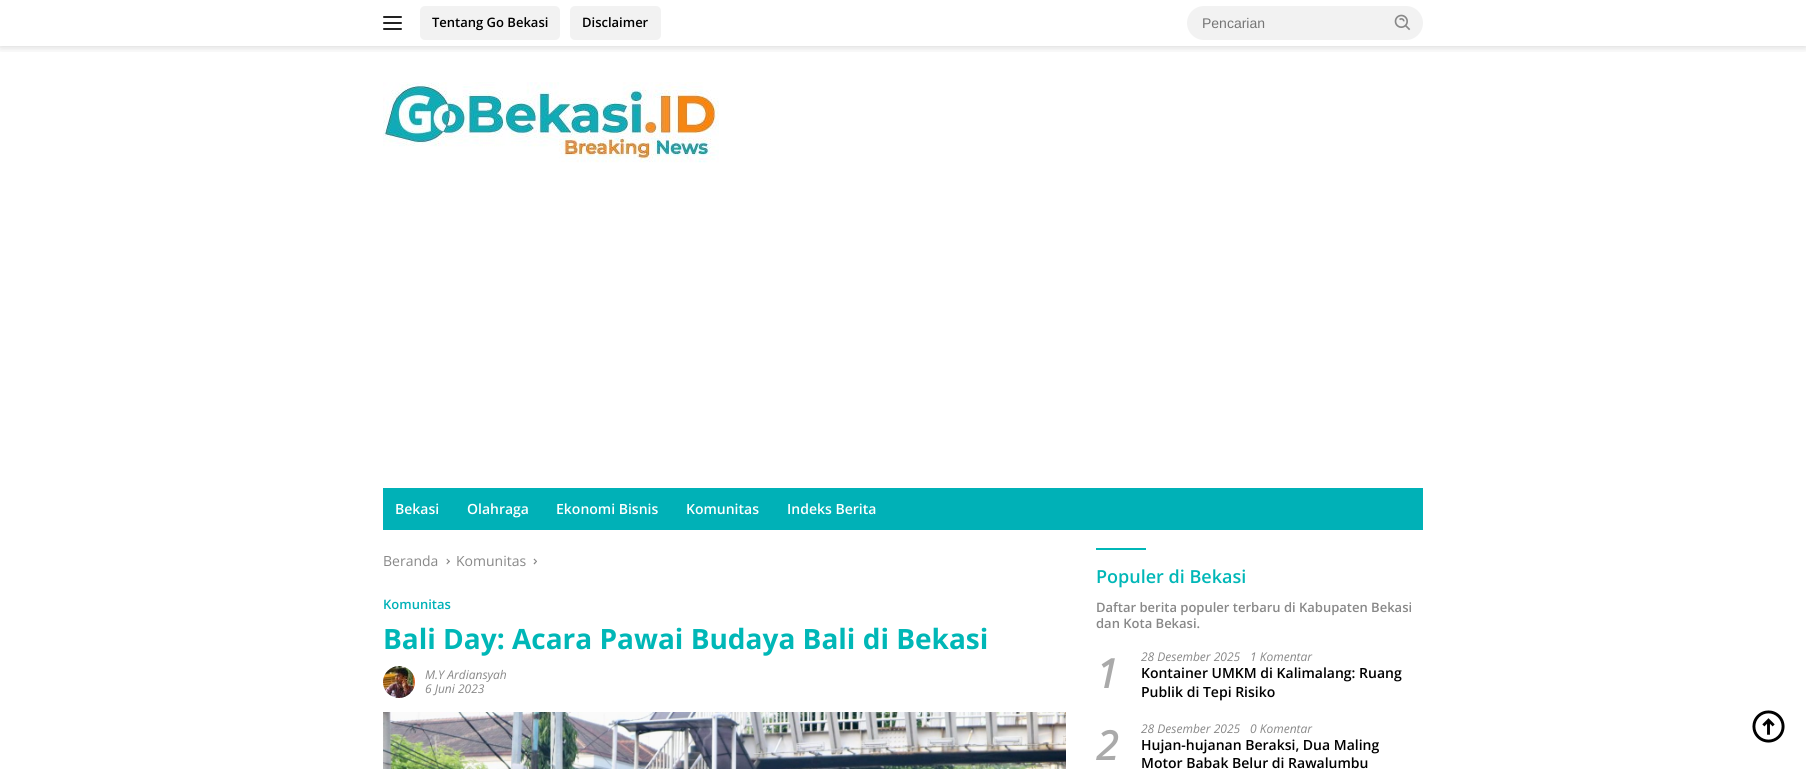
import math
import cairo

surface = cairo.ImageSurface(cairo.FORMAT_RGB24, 1806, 769)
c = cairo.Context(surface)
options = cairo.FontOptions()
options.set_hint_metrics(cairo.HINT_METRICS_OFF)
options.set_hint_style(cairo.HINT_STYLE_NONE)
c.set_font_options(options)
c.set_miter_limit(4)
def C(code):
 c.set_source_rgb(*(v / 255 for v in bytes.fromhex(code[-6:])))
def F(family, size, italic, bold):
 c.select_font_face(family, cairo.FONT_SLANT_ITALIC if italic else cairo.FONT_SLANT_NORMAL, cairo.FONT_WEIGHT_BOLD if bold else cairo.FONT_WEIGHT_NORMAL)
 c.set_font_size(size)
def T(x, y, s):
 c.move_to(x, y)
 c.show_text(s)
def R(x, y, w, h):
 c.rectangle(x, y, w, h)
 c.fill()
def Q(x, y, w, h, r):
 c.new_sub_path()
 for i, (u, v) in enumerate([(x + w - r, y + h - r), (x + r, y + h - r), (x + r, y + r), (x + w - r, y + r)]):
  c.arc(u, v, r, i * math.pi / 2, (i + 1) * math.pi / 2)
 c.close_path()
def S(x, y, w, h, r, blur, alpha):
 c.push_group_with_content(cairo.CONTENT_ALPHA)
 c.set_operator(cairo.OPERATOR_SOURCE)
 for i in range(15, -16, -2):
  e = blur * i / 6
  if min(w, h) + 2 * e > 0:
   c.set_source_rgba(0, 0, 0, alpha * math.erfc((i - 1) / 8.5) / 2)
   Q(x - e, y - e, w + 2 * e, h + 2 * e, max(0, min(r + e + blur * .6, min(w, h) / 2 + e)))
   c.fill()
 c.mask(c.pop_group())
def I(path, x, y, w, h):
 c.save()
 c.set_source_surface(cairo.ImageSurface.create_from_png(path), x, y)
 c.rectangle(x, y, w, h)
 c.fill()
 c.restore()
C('ffffff')
c.paint()
c.save()
c.rectangle(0,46,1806,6)
c.clip()
C('000000')
S(0,0,1806,46,0,5,.2)
c.restore()
C('222222')
Q(383,16,19,2,1)
c.fill()
Q(383,22,19,2,1)
c.fill()
Q(383,28,19,2,1)
c.fill()
C('f2f2f2')
Q(420,6,140,34,5)
c.fill()
F('Open Sans SemiBold',13,0,0)
C('000000')
T(432,27,'Tentang Go Bekasi')
C('f2f2f2')
Q(570,6,91,34,5)
c.fill()
C('000000')
T(582,27,'Disclaimer')
C('f2f2f2')
Q(1187,6,236,34,17)
c.fill()
F('Liberation Sans',14,0,0)
C('757575')
T(1202,28,'Pencarian')
I('1.png',1394,14,17,17)
I('2.png',383,82,336,81)
C('00b1b7')
R(383,488,1040,42)
F('Open Sans SemiBold',14,0,0)
C('ffffff')
T(395,514,'Bekasi')
T(467,514,'Olahraga')
T(556,514,'Ekonomi Bisnis')
T(686,514,'Komunitas')
T(787,514,'Indeks Berita')
F('Open Sans',14,0,0)
C('888888')
T(383,566,'Beranda')
c.new_path()
c.move_to(446.5,559.5)
c.line_to(447,558.5)
c.line_to(450,561.5)
c.line_to(449,562)
c.close_path()
c.fill()
c.new_path()
c.move_to(446.5,563.5)
c.line_to(449,560.5)
c.line_to(450,561.5)
c.line_to(447,564.5)
c.close_path()
c.fill()
T(456,566,'Komunitas')
c.new_path()
c.move_to(533.5,559.5)
c.line_to(534.5,558.5)
c.line_to(537,561.5)
c.line_to(536.5,562)
c.close_path()
c.fill()
c.new_path()
c.move_to(533.5,563.5)
c.line_to(536.5,560.5)
c.line_to(537,561.5)
c.line_to(534.5,564.5)
c.close_path()
c.fill()
F('Open Sans SemiBold',13,0,0)
C('00b1b7')
T(383,609,'Komunitas')
F('Open Sans',28,0,1)
C('00b7b7')
T(383,649,'Bali Day: Acara Pawai Budaya Bali di Bekasi')
I('3.png',383,666,32,32)
F('Open Sans',12,1,0)
C('888888')
T(425,679,'M.Y Ardiansyah')
T(425,693,'6 Juni 2023')
I('4.png',383,712,683,57)
C('00b7b7')
R(1096,548,50,2)
F('Open Sans SemiBold',18,0,0)
T(1096,583,'Populer di Bekasi')
F('Open Sans SemiBold',13,0,0)
C('888888')
T(1096,612,'Daftar berita populer terbaru di Kabupaten Bekasi')
T(1096,628,'dan Kota Bekasi.')
F('Open Sans',40,1,1)
C('aaaaaa')
T(1096,688,'1')
F('Open Sans',12,1,0)
C('888888')
T(1141,661,'28 Desember 2025')
T(1250,661,'1 Komentar')
F('Open Sans SemiBold',14,0,0)
C('000000')
T(1141,678,'Kontainer UMKM di Kalimalang: Ruang')
T(1141,697,'Publik di Tepi Risiko')
F('Open Sans',40,1,1)
C('aaaaaa')
T(1096,760,'2')
F('Open Sans',12,1,0)
C('888888')
T(1141,733,'28 Desember 2025')
T(1250,733,'0 Komentar')
F('Open Sans SemiBold',14,0,0)
C('000000')
T(1141,750,'Hujan-hujanan Beraksi, Dua Maling')
T(1141,768,'Motor Babak Belur di Rawalumbu')
I('5.png',1752,710,33,33)
surface.write_to_png('o.png')
